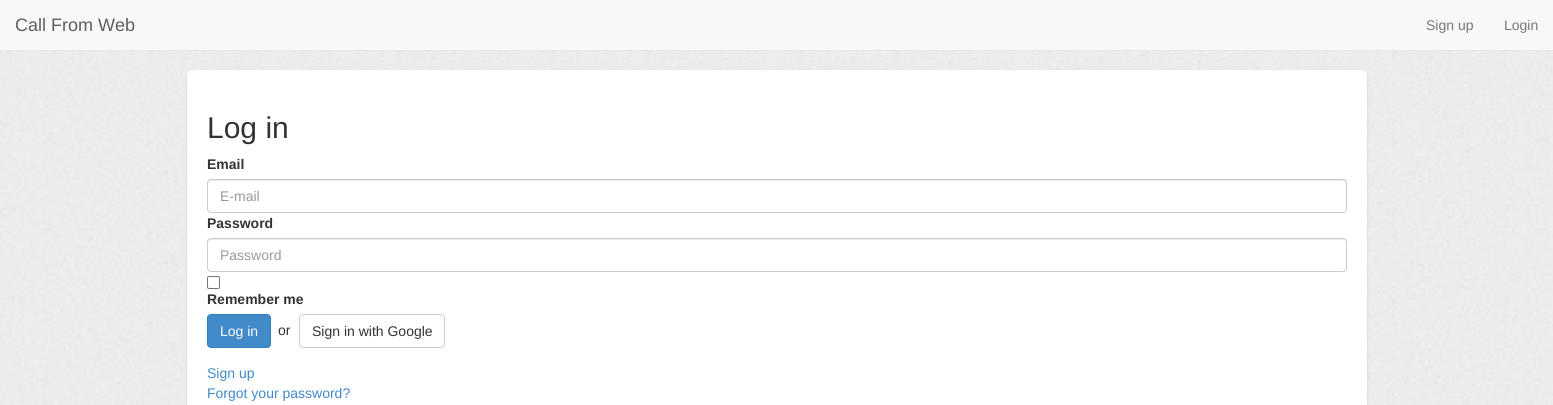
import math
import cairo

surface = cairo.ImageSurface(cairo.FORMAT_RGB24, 1553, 405)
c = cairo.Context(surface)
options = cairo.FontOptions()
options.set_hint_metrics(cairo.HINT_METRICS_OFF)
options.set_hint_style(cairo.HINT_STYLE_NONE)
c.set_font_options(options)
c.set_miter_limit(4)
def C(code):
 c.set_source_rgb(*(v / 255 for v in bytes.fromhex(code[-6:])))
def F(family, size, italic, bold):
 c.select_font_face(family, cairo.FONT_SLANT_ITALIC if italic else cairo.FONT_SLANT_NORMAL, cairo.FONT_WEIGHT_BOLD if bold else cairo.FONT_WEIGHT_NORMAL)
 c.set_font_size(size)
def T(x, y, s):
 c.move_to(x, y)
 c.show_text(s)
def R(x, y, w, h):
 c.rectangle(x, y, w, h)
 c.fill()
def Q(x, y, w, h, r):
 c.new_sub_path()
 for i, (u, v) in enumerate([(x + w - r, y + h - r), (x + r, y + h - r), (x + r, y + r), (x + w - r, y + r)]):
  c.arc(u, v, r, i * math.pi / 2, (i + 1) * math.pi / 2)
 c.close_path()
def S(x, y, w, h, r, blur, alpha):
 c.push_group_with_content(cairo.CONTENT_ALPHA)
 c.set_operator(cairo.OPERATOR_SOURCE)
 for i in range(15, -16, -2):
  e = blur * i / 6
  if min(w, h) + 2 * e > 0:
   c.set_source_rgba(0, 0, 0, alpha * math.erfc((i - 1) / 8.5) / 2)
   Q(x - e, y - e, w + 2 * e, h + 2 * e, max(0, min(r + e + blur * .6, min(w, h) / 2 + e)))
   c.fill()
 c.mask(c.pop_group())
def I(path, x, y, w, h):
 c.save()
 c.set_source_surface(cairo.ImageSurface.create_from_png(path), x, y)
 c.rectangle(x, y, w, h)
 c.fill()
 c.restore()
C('ffffff')
c.paint()
I('1.png',0,51,1553,354)
C('f8f8f8')
R(0,0,1553,50)
C('e7e7e7')
R(0,50,1553,1)
F('Liberation Sans',18,0,0)
C('5e5e5e')
T(15,31,'Call From Web')
F('Liberation Sans',14,0,0)
C('777777')
T(1426,30,'Sign up')
T(1504,30,'Login')
C('000000')
S(187,71,1180,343,6,1,.15)
C('ffffff')
Q(187,70,1180,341,6)
c.fill()
F('Liberation Sans',30,0,0)
C('333333')
T(207,138,'Log in')
F('Liberation Sans',14,0,1)
T(207,169,'Email')
C('ececec')
c.new_path()
c.move_to(211,181)
c.line_to(1343,181)
c.curve_to(1345,181,1346,182,1346,184)
c.line_to(1346,183)
c.curve_to(1346,181,1345,180,1343,180)
c.line_to(211,180)
c.curve_to(209,180,208,181,208,183)
c.line_to(208,184)
c.curve_to(208,182,209,181,211,181)
c.close_path()
c.fill()
Q(207.5,179.5,1139,33,3.5)
C('cccccc')
c.set_line_width(1)
c.stroke()
F('Liberation Sans',14,0,0)
C('999999')
T(220,201,'E-mail')
F('Liberation Sans',14,0,1)
C('333333')
T(207,228,'Password')
C('ececec')
c.new_path()
c.move_to(211,240)
c.line_to(1343,240)
c.curve_to(1345,240,1346,241,1346,243)
c.line_to(1346,242)
c.curve_to(1346,240,1345,239,1343,239)
c.line_to(211,239)
c.curve_to(209,239,208,240,208,242)
c.line_to(208,243)
c.curve_to(208,241,209,240,211,240)
c.close_path()
c.fill()
Q(207.5,238.5,1139,33,3.5)
C('cccccc')
c.stroke()
F('Liberation Sans',14,0,0)
C('999999')
T(220,260,'Password')
Q(207.5,276.5,12,12,1.5)
C('767676')
c.stroke()
F('Liberation Sans',14,0,1)
C('333333')
T(207,304,'Remember me')
C('428bca')
Q(207.5,314.5,63,33,3.5)
c.fill_preserve()
C('357ebd')
c.stroke()
F('Liberation Sans',14,0,0)
C('ffffff')
T(220,336,'Log in')
C('333333')
T(278,335,'or')
Q(299.5,314.5,145,33,3.5)
C('cccccc')
c.stroke()
C('333333')
T(312,336,'Sign in with Google')
C('428bca')
T(207,378,'Sign up')
T(207,398,'Forgot your password?')
surface.write_to_png('o.png')
